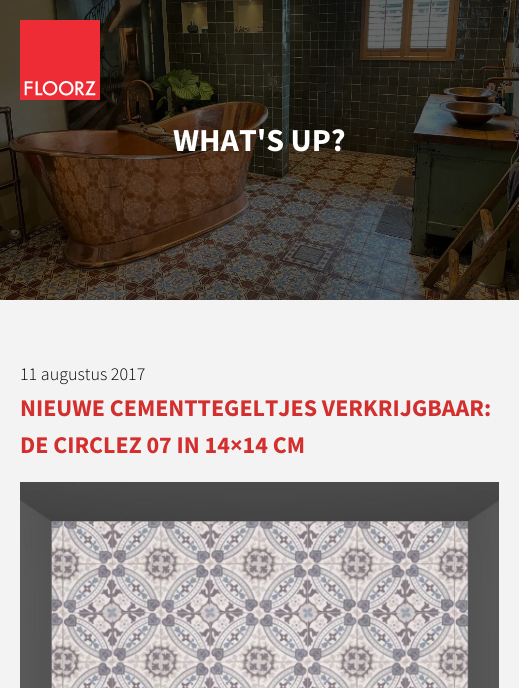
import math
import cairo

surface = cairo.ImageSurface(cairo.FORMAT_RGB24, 519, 688)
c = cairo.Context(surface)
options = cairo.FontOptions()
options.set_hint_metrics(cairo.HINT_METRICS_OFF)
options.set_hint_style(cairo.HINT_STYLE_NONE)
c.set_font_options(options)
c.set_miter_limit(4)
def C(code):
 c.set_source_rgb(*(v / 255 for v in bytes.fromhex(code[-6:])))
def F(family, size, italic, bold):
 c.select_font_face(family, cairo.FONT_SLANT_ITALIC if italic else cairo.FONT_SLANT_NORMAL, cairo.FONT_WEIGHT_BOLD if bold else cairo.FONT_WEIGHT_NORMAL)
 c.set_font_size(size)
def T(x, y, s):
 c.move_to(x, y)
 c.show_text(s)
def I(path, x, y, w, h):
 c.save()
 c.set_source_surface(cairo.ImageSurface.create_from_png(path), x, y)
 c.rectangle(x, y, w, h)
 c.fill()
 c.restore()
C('f3f3f3')
c.paint()
I('2.png',0,0,519,300)
I('1.png',20,20,80,80)
F('Source Sans Pro',32,0,1)
C('ffffff')
T(173,151,'WHAT\'S UP?')
F('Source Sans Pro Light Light',18,0,0)
C('000000')
T(20,380,'11 augustus 2017')
F('Source Sans Pro',24,0,1)
C('d32f2f')
T(20,416,'NIEUWE CEMENTTEGELTJES VERKRIJGBAAR:')
T(20,453,'DE CIRCLEZ 07 IN 14×14 CM')
I('3.png',20,482,479,206)
surface.write_to_png('o.png')
